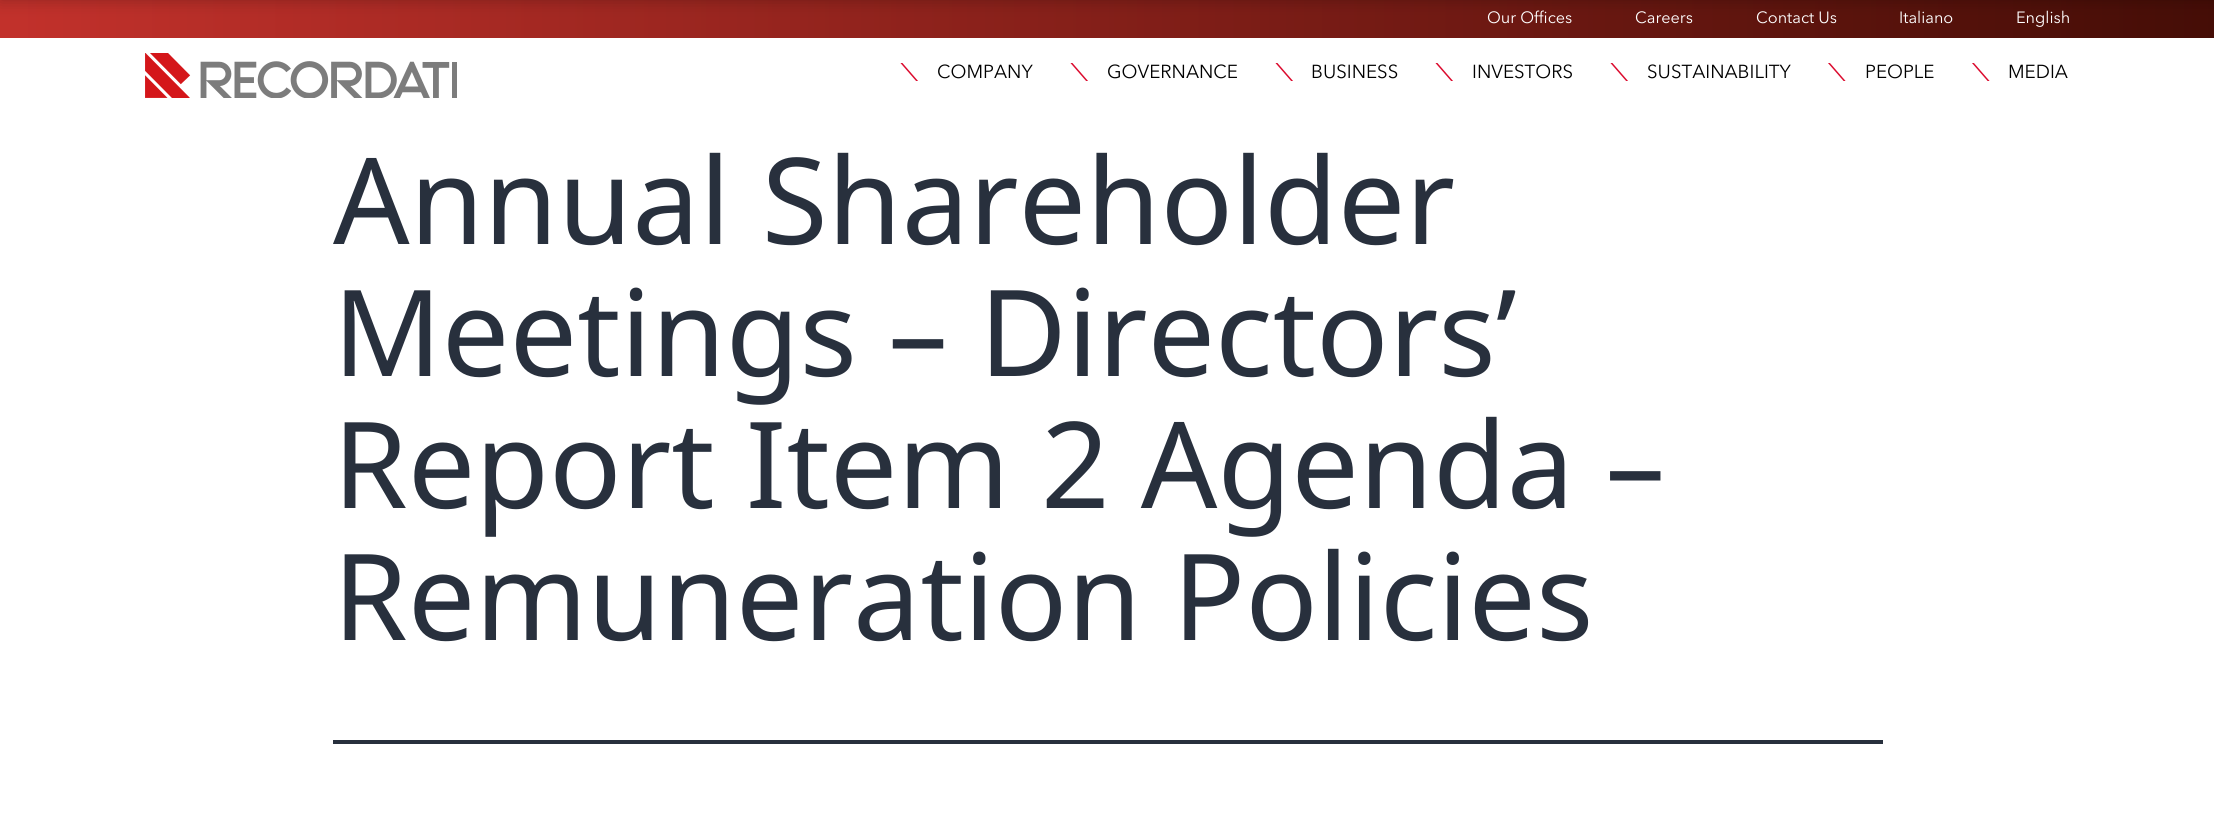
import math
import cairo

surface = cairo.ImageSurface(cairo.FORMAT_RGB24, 2214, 836)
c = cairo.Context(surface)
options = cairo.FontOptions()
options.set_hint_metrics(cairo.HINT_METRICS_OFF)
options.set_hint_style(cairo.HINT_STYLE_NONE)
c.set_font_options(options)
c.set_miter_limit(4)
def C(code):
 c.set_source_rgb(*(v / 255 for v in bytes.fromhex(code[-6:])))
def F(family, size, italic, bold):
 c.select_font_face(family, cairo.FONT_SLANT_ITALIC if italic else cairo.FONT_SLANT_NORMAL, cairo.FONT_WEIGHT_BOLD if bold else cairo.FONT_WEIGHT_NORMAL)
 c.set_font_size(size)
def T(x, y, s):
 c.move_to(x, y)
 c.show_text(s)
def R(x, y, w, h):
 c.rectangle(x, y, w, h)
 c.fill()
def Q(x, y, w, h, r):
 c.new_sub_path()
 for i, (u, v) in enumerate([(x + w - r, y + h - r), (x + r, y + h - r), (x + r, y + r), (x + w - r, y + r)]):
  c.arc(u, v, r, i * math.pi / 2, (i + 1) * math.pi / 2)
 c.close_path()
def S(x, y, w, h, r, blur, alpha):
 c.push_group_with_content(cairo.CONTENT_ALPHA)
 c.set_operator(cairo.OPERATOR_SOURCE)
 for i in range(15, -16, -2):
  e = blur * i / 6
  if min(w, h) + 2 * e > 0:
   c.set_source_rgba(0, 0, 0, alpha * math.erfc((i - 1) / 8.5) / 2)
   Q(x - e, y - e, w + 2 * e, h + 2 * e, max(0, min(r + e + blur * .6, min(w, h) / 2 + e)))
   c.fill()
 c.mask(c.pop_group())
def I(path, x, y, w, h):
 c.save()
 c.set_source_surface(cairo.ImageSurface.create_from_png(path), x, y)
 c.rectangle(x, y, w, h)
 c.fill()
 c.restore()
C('ffffff')
c.paint()
gradient = cairo.LinearGradient(0,19,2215,19)
gradient.add_color_stop_rgba(0,0.761,0.192,0.169,1)
gradient.add_color_stop_rgba(1,0.271,0.051,0.024,1)
c.set_source(gradient)
R(0,0,2214,38)
C('000000')
S(0,-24,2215,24,0,8,.25)
F('Avenir Next',16.25,0,0)
C('ffffff')
T(1487,23,'Our Offices')
T(1635,23,'Careers')
T(1756,23,'Contact Us')
T(1899,23,'Italiano')
T(2016,23,'English')
I('1.png',145,53,312,45)
c.save()
c.rectangle(900,63,19,18)
c.clip()
C('db0b2e')
c.new_path()
c.move_to(918.5,81.5)
c.line_to(916.5,81.5)
c.line_to(900,62.5)
c.line_to(902,62.5)
c.close_path()
c.fill()
c.restore()
F('Avenir Next',18.75,0,0)
C('000000')
T(937,78,'COMPANY')
c.save()
c.rectangle(1070,63,19,18)
c.clip()
C('db0b2e')
c.new_path()
c.move_to(1088.5,81.5)
c.line_to(1086.5,81.5)
c.line_to(1070,62.5)
c.line_to(1072,62.5)
c.close_path()
c.fill()
c.restore()
T(1107,78,'GOVERNANCE')
c.save()
c.rectangle(1275,63,19,18)
c.clip()
C('db0b2e')
c.new_path()
c.move_to(1293.5,81.5)
c.line_to(1291.5,81.5)
c.line_to(1275,62.5)
c.line_to(1277,62.5)
c.close_path()
c.fill()
c.restore()
T(1311,78,'BUSINESS')
c.save()
c.rectangle(1435,63,19,18)
c.clip()
C('db0b2e')
c.new_path()
c.move_to(1453.5,81.5)
c.line_to(1451.5,81.5)
c.line_to(1435,62.5)
c.line_to(1437,62.5)
c.close_path()
c.fill()
c.restore()
T(1472,78,'INVESTORS')
c.save()
c.rectangle(1610,63,19,18)
c.clip()
C('db0b2e')
c.new_path()
c.move_to(1628.5,81.5)
c.line_to(1626.5,81.5)
c.line_to(1610,62.5)
c.line_to(1612,62.5)
c.close_path()
c.fill()
c.restore()
T(1647,78,'SUSTAINABILITY')
c.save()
c.rectangle(1828,63,18,18)
c.clip()
C('db0b2e')
c.new_path()
c.move_to(1846,81.5)
c.line_to(1844,81.5)
c.line_to(1827.5,62.5)
c.line_to(1829.5,62.5)
c.close_path()
c.fill()
c.restore()
T(1865,78,'PEOPLE')
c.save()
c.rectangle(1971,63,19,18)
c.clip()
C('db0b2e')
c.new_path()
c.move_to(1990,81.5)
c.line_to(1988,81.5)
c.line_to(1971.5,62.5)
c.line_to(1973.5,62.5)
c.close_path()
c.fill()
c.restore()
T(2008,78,'MEDIA')
C('28303d')
R(333,740,1550,4)
F('Noto Sans',120,0,0)
T(333,244,'Annual Shareholder')
T(333,376,'Meetings – Directors’')
T(333,508,'Report Item 2 Agenda –')
T(333,640,'Remuneration Policies')
surface.write_to_png('o.png')
